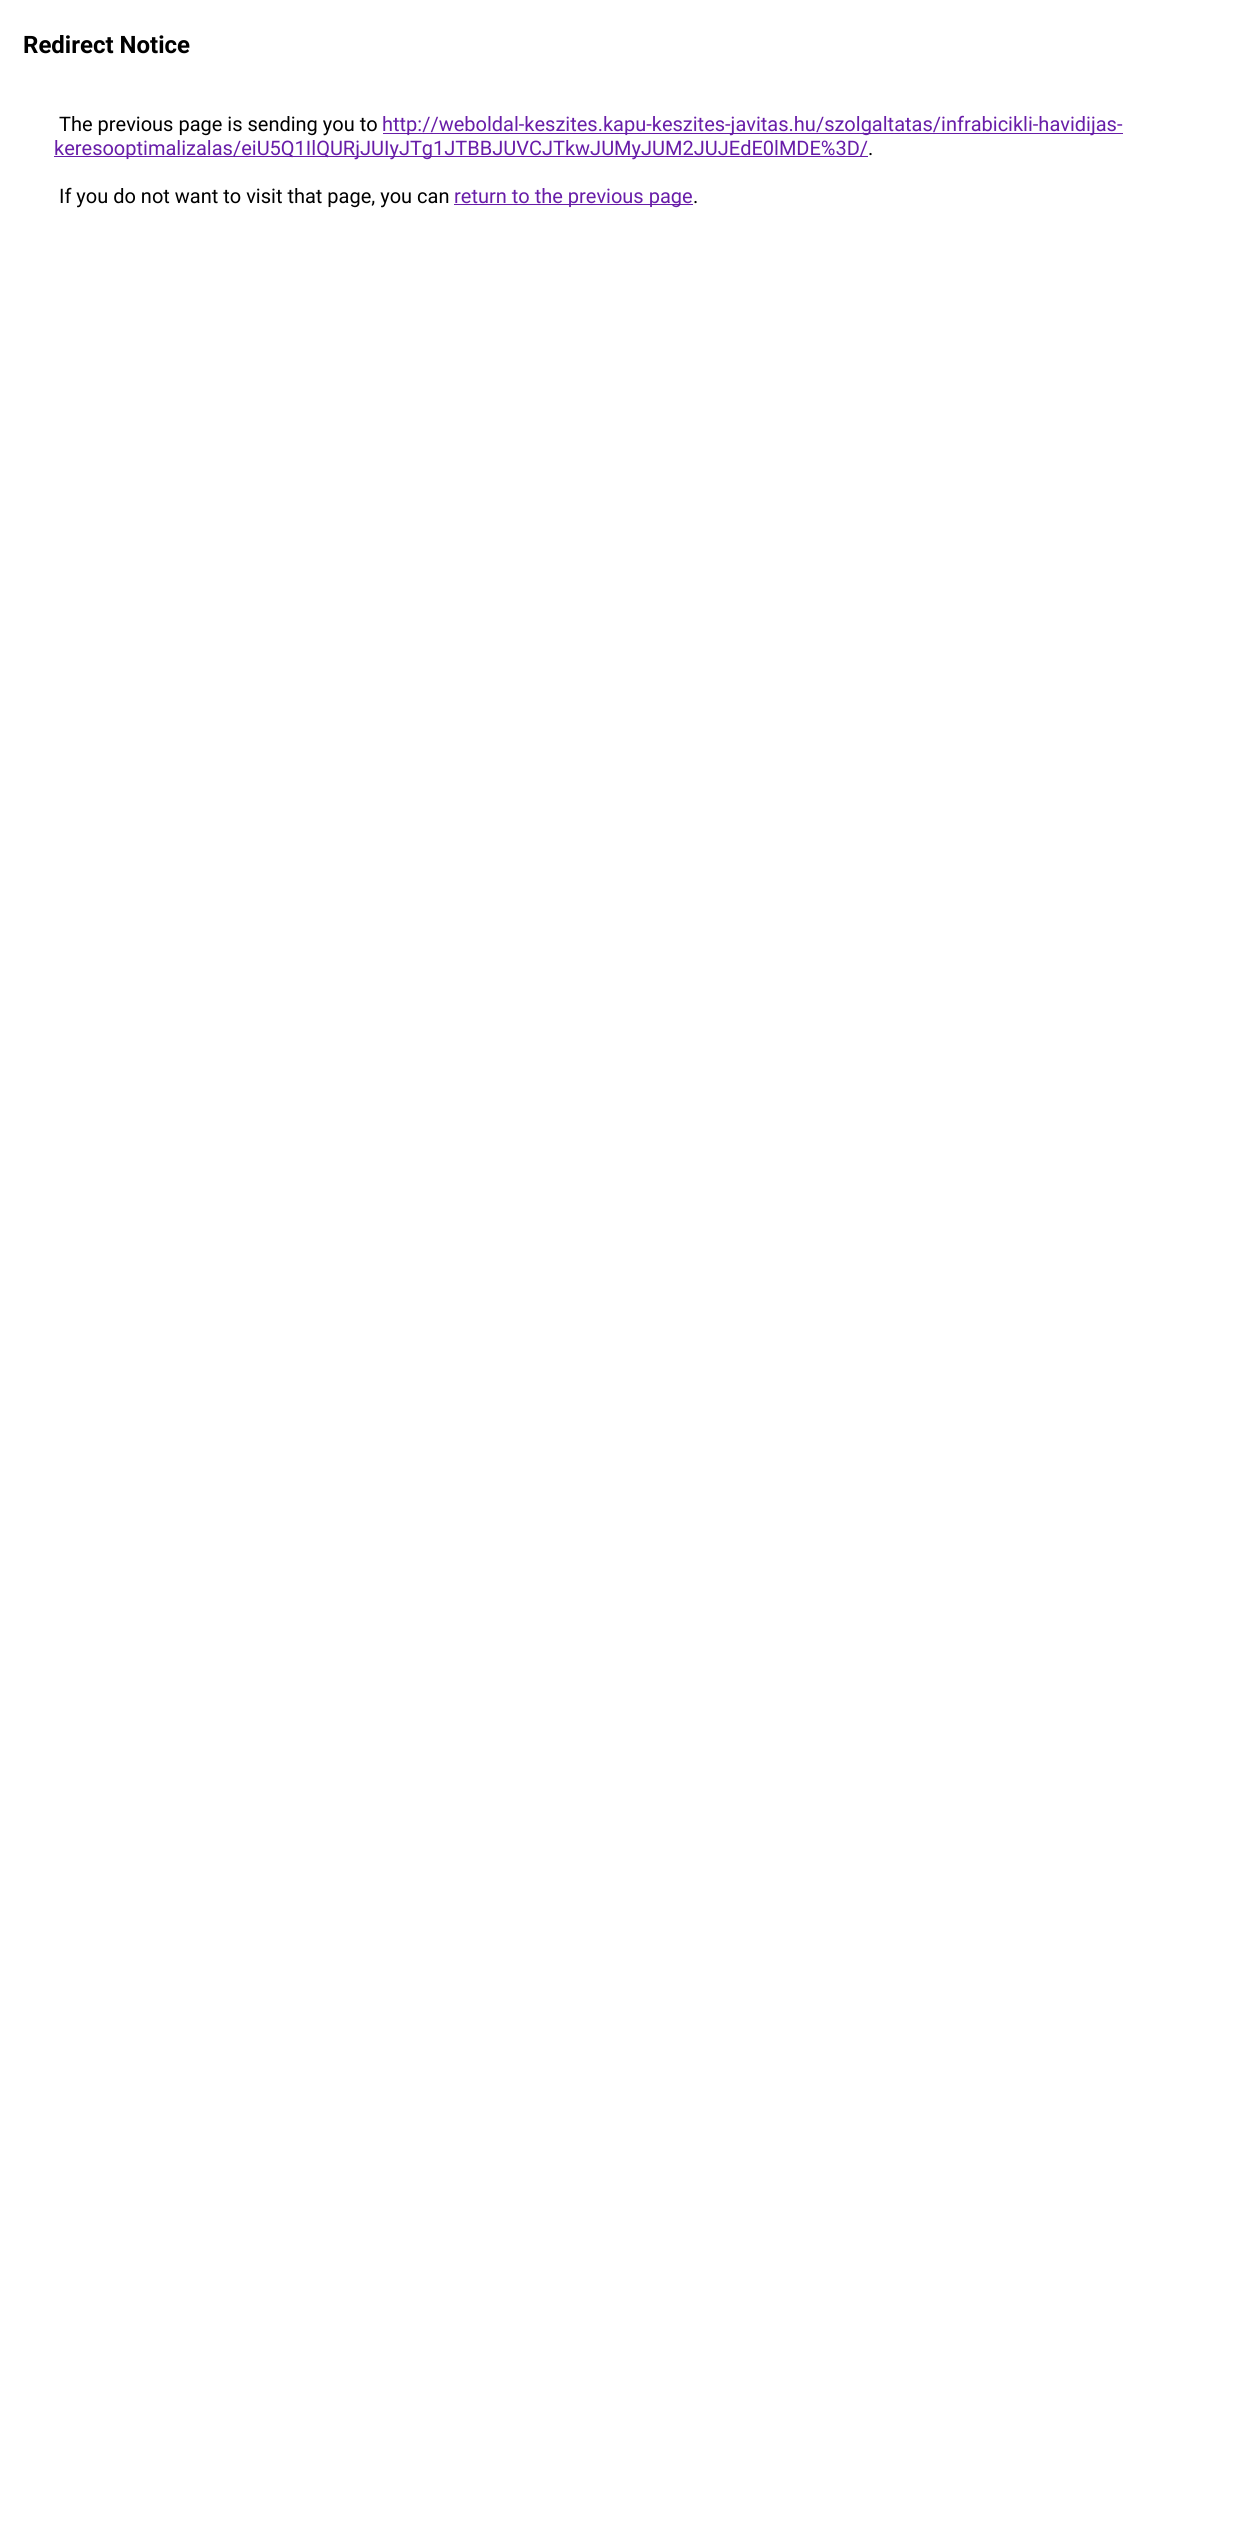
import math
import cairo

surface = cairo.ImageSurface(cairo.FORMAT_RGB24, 1233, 2522)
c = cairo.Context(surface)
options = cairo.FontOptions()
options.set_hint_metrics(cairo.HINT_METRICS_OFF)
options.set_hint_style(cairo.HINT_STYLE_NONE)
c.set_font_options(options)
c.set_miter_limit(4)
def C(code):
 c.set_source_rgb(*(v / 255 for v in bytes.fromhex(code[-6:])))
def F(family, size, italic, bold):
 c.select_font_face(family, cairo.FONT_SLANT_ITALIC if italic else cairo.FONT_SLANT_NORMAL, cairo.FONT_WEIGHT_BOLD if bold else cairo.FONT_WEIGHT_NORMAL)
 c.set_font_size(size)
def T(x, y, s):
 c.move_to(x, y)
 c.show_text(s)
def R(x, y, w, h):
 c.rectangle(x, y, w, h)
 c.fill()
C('ffffff')
c.paint()
F('Roboto',24,0,1)
C('000000')
T(23,53,'Redirect Notice')
F('Roboto',20,0,0)
T(59,131,'The previous page is sending you to')
C('681da8')
R(383,133,740,1)
T(382,131,'http://weboldal-keszites.kapu-keszites-javitas.hu/szolgaltatas/infrabicikli-havidijas-')
R(54,156,814,1)
T(54,155,'keresooptimalizalas/eiU5Q1IlQURjJUIyJTg1JTBBJUVCJTkwJUMyJUM2JUJEdE0lMDE%3D/')
C('000000')
T(868,155,'.')
T(59,203,'If you do not want to visit that page, you can')
C('681da8')
R(454,204,239,1)
T(454,203,'return to the previous page')
C('000000')
T(693,203,'.')
surface.write_to_png('o.png')
